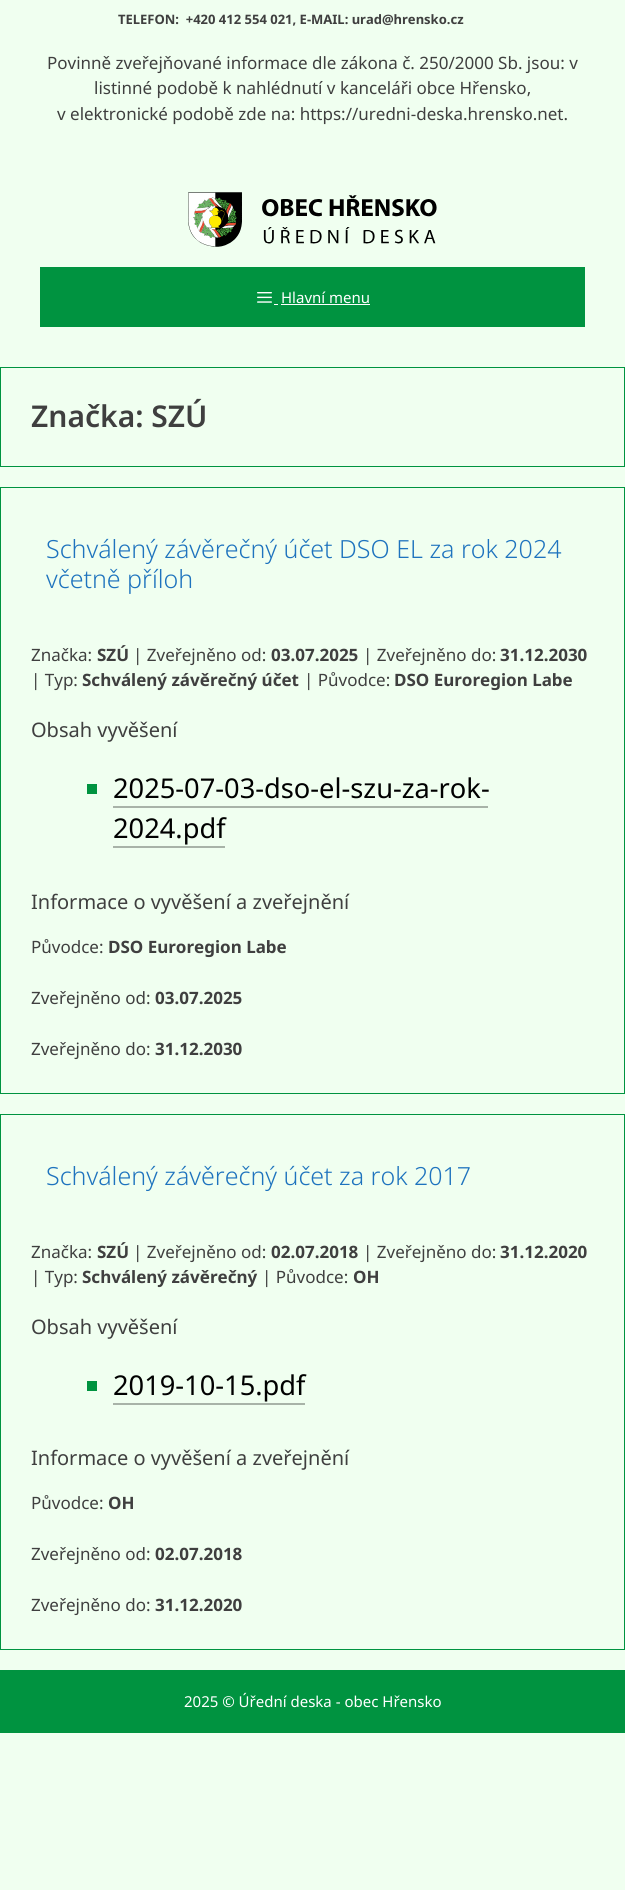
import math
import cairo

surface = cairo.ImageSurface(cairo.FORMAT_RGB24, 625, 1890)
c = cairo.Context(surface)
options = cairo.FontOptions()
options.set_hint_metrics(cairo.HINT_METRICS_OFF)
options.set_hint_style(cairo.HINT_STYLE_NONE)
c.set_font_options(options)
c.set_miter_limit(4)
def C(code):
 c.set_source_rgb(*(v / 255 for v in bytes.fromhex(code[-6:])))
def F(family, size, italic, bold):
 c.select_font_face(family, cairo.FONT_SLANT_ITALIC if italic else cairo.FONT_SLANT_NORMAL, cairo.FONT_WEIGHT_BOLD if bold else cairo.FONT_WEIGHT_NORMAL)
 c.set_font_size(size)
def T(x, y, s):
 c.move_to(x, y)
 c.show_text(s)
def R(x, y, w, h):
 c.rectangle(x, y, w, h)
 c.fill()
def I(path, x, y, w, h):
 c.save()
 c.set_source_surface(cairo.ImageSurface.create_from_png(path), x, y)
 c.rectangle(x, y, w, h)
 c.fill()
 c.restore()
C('f0fff0')
c.paint()
F('Noto Sans',13,0,1)
C('3f3f3f')
T(118,24,'TELEFON:  +420 412 554 021, E-MAIL: urad@hrensko.cz')
F('Noto Sans',17,0,0)
T(47,69,'Povinně zveřejňované informace dle zákona č. 250/2000 Sb. jsou: v')
T(94,94,'listinné podobě k nahlédnutí v kanceláři obce Hřensko,')
T(57,120,'v elektronické podobě zde na: https://uredni-deska.hrensko.net.')
I('1.png',188,192,249,55)
C('009340')
R(40,267,545,60)
I('2.png',257,292,15,11)
F('Noto Sans',15,0,0)
C('ffffff')
T(281,303,'Hlavní menu')
R(281,304,89,1)
R(274,304,4,1)
c.rectangle(.5,367.5,624,99)
C('009340')
c.set_line_width(1)
c.stroke()
F('Noto Sans SemiBold',30,0,0)
C('3f3f3f')
T(31,427,'Značka: SZÚ')
c.rectangle(.5,487.5,624,606)
C('009340')
c.stroke()
F('Noto Sans Light',25,0,0)
C('1e73be')
T(46,558,'Schválený závěrečný účet DSO EL za rok 2024')
T(46,588,'včetně příloh')
F('Noto Sans',17,0,0)
C('3f3f3f')
T(31,661,'Značka:')
F('Noto Sans',17,0,1)
T(97,661,'SZÚ')
F('Noto Sans',17,0,0)
T(133,661,'| Zveřejněno od:')
F('Noto Sans',17,0,1)
T(271,661,'03.07.2025')
F('Noto Sans',17,0,0)
T(363,661,'| Zveřejněno do:')
F('Noto Sans',17,0,1)
T(500,661,'31.12.2030')
F('Noto Sans',17,0,0)
T(31,686,'| Typ:')
F('Noto Sans',17,0,1)
T(82,686,'Schválený závěrečný účet')
F('Noto Sans',17,0,0)
T(304,686,'| Původce:')
F('Noto Sans',17,0,1)
T(394,686,'DSO Euroregion Labe')
F('Noto Sans',20,0,0)
T(31,737,'Obsah vyvěšení')
C('009340')
R(87,784,10,10)
F('Noto Sans',27.25,0,0)
C('000000')
T(113,798,'2025-07-03-dso-el-szu-za-rok-')
C('a8b3a8')
R(113,806,375,2)
C('000000')
T(113,838,'2024.pdf')
C('a8b3a8')
R(113,846,112,2)
F('Noto Sans',20,0,0)
C('3f3f3f')
T(31,909,'Informace o vyvěšení a zveřejnění')
F('Noto Sans',17,0,0)
T(31,953,'Původce:')
F('Noto Sans',17,0,1)
T(108,953,'DSO Euroregion Labe')
F('Noto Sans',17,0,0)
T(31,1004,'Zveřejněno od:')
F('Noto Sans',17,0,1)
T(155,1004,'03.07.2025')
F('Noto Sans',17,0,0)
T(31,1055,'Zveřejněno do:')
F('Noto Sans',17,0,1)
T(155,1055,'31.12.2030')
c.rectangle(.5,1114.5,624,535)
C('009340')
c.stroke()
F('Noto Sans Light',25,0,0)
C('1e73be')
T(46,1185,'Schválený závěrečný účet za rok 2017')
F('Noto Sans',17,0,0)
C('3f3f3f')
T(31,1258,'Značka:')
F('Noto Sans',17,0,1)
T(97,1258,'SZÚ')
F('Noto Sans',17,0,0)
T(133,1258,'| Zveřejněno od:')
F('Noto Sans',17,0,1)
T(271,1258,'02.07.2018')
F('Noto Sans',17,0,0)
T(363,1258,'| Zveřejněno do:')
F('Noto Sans',17,0,1)
T(500,1258,'31.12.2020')
F('Noto Sans',17,0,0)
T(31,1283,'| Typ:')
F('Noto Sans',17,0,1)
T(82,1283,'Schválený závěrečný')
F('Noto Sans',17,0,0)
T(262,1283,'| Původce:')
F('Noto Sans',17,0,1)
T(353,1283,'OH')
F('Noto Sans',20,0,0)
T(31,1334,'Obsah vyvěšení')
C('009340')
R(87,1381,10,10)
F('Noto Sans',27.25,0,0)
C('000000')
T(113,1395,'2019-10-15.pdf')
C('a8b3a8')
R(113,1403,192,2)
F('Noto Sans',20,0,0)
C('3f3f3f')
T(31,1465,'Informace o vyvěšení a zveřejnění')
F('Noto Sans',17,0,0)
T(31,1509,'Původce:')
F('Noto Sans',17,0,1)
T(108,1509,'OH')
F('Noto Sans',17,0,0)
T(31,1560,'Zveřejněno od:')
F('Noto Sans',17,0,1)
T(155,1560,'02.07.2018')
F('Noto Sans',17,0,0)
T(31,1611,'Zveřejněno do:')
F('Noto Sans',17,0,1)
T(155,1611,'31.12.2020')
C('009340')
R(0,1670,625,63)
F('Noto Sans',15,0,0)
C('ffffff')
T(184,1707,'2025 © Úřední deska - obec Hřensko')
surface.write_to_png('o.png')
